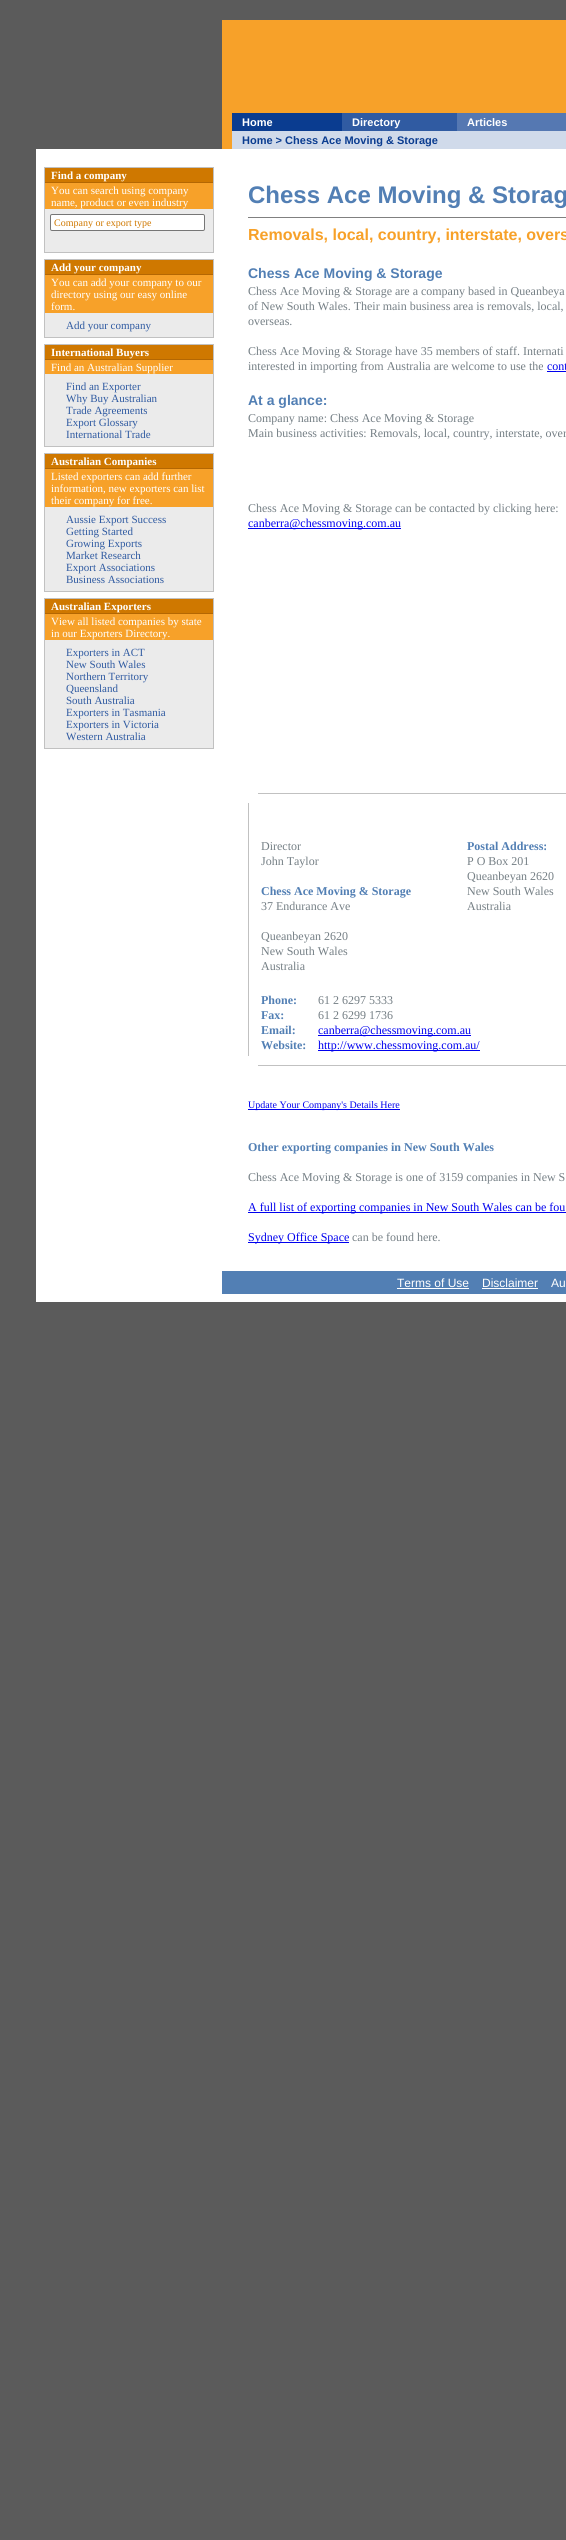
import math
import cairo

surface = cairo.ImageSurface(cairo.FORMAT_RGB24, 566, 2540)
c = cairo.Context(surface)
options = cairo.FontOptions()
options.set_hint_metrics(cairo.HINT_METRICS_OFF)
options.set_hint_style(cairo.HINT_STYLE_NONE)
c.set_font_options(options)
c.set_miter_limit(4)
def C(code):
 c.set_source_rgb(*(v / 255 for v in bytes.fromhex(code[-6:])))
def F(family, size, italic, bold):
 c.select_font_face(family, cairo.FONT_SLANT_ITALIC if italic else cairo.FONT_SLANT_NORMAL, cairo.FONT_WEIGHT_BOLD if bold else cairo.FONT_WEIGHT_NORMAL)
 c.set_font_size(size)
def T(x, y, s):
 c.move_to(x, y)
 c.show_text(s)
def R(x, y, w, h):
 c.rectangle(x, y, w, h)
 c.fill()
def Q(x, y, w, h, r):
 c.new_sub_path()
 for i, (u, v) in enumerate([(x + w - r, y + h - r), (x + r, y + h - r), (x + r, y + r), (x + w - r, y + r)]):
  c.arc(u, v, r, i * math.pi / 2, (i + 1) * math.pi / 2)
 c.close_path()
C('5b5b5b')
c.paint()
C('f7a129')
R(222,20,344,129)
C('0a3c90')
R(232,113,110,18)
F('Liberation Sans',11,0,1)
C('ffffff')
T(242,126,'Home')
C('305ba2')
R(342,113,115,18)
C('ffffff')
T(352,126,'Directory')
C('5578b2')
R(457,113,109,18)
C('ffffff')
T(467,126,'Articles')
C('d0daea')
R(232,131,334,18)
C('0a3c90')
T(242,144,'Home > Chess Ace Moving & Storage')
C('ffffff')
R(36,149,530,618)
c.rectangle(44.5,167.5,169,85)
C('c1c1c1')
c.set_line_width(1)
c.stroke()
C('cf7800')
R(45,168,168,14)
C('b46702')
R(45,182,168,1)
F('Liberation Serif',11,0,1)
C('ffffff')
T(51,179,'Find a company')
C('f7a129')
R(45,183,168,26)
F('Liberation Serif',11,0,0)
C('ffffff')
T(51,194,'You can search using company')
T(51,206,'name, product or even industry')
C('ebebeb')
R(45,209,168,43)
C('ffffff')
Q(50.5,214.5,154,16,1.5)
c.fill_preserve()
C('767676')
c.stroke()
c.save()
c.rectangle(54,217,147,11)
c.clip()
F('Liberation Serif',10,0,0)
C('cf7800')
T(54,226,'Company or export type')
c.restore()
c.rectangle(44.5,259.5,169,78)
C('c1c1c1')
c.stroke()
C('cf7800')
R(45,260,168,14)
C('b46702')
R(45,274,168,1)
F('Liberation Serif',11,0,1)
C('ffffff')
T(51,271,'Add your company')
C('f7a129')
R(45,275,168,38)
F('Liberation Serif',11,0,0)
C('ffffff')
T(51,286,'You can add your company to our')
T(51,298,'directory using our easy online')
T(51,310,'form.')
C('ebebeb')
R(45,313,168,24)
C('2f5aa1')
T(66,329,'Add your company')
c.rectangle(44.5,344.5,169,102)
C('c1c1c1')
c.stroke()
C('cf7800')
R(45,345,168,14)
C('b46702')
R(45,359,168,1)
F('Liberation Serif',11,0,1)
C('ffffff')
T(51,356,'International Buyers')
C('f7a129')
R(45,360,168,14)
F('Liberation Serif',11,0,0)
C('ffffff')
T(51,371,'Find an Australian Supplier')
C('ebebeb')
R(45,374,168,72)
C('2f5aa1')
T(66,390,'Find an Exporter')
T(66,402,'Why Buy Australian')
T(66,414,'Trade Agreements')
T(66,426,'Export Glossary')
T(66,438,'International Trade')
c.rectangle(44.5,453.5,169,138)
C('c1c1c1')
c.stroke()
C('cf7800')
R(45,454,168,14)
C('b46702')
R(45,468,168,1)
F('Liberation Serif',11,0,1)
C('ffffff')
T(51,465,'Australian Companies')
C('f7a129')
R(45,469,168,38)
F('Liberation Serif',11,0,0)
C('ffffff')
T(51,480,'Listed exporters can add further')
T(51,492,'information, new exporters can list')
T(51,504,'their company for free.')
C('ebebeb')
R(45,507,168,84)
C('2f5aa1')
T(66,523,'Aussie Export Success')
T(66,535,'Getting Started')
T(66,547,'Growing Exports')
T(66,559,'Market Research')
T(66,571,'Export Associations')
T(66,583,'Business Associations')
c.rectangle(44.5,598.5,169,150)
C('c1c1c1')
c.stroke()
C('cf7800')
R(45,599,168,14)
C('b46702')
R(45,613,168,1)
F('Liberation Serif',11,0,1)
C('ffffff')
T(51,610,'Australian Exporters')
C('f7a129')
R(45,614,168,26)
F('Liberation Serif',11,0,0)
C('ffffff')
T(51,625,'View all listed companies by state')
T(51,637,'in our Exporters Directory.')
C('ebebeb')
R(45,640,168,108)
C('2f5aa1')
T(66,656,'Exporters in ACT')
T(66,668,'New South Wales')
T(66,680,'Northern Territory')
T(66,692,'Queensland')
T(66,704,'South Australia')
T(66,716,'Exporters in Tasmania')
T(66,728,'Exporters in Victoria')
T(66,740,'Western Australia')
F('Liberation Sans',24,0,1)
C('527fb4')
T(248,203,'Chess Ace Moving & Storag')
C('808080')
R(248,217,318,1)
F('Liberation Sans',16,0,1)
C('f7a129')
T(248,240,'Removals, local, country, interstate, overs')
F('Liberation Sans',14,0,1)
C('527fb4')
T(248,278,'Chess Ace Moving & Storage')
F('Liberation Serif',12,0,0)
C('757f85')
T(248,295,'Chess Ace Moving & Storage are a company based in Queanbeya')
T(248,310,'of New South Wales. Their main business area is removals, local,')
T(248,325,'overseas.')
T(248,355,'Chess Ace Moving & Storage have 35 members of staff. Internati')
T(248,370,'interested in importing from Australia are welcome to use the')
C('0000ee')
T(547,370,'cont')
R(547,371,19,1)
F('Liberation Sans',14,0,1)
C('527fb4')
T(248,405,'At a glance:')
F('Liberation Serif',12,0,0)
C('757f85')
T(248,422,'Company name: Chess Ace Moving & Storage')
T(248,437,'Main business activities: Removals, local, country, interstate, over')
T(248,512,'Chess Ace Moving & Storage can be contacted by clicking here:')
C('0000ee')
R(248,528,153,1)
T(248,527,'canberra@chessmoving.com.au')
C('ffffff')
R(36,767,186,535)
R(222,767,344,504)
C('c1c1c1')
R(258,793,308,1)
R(248,803,1,253)
C('757f85')
T(261,850,'Director')
T(261,865,'John Taylor')
F('Liberation Serif',12,0,1)
C('527fb4')
T(261,895,'Chess Ace Moving & Storage')
F('Liberation Serif',12,0,0)
C('757f85')
T(261,910,'37 Endurance Ave')
T(261,940,'Queanbeyan 2620')
T(261,955,'New South Wales')
T(261,970,'Australia')
F('Liberation Serif',12,0,1)
C('527fb4')
T(467,850,'Postal Address:')
F('Liberation Serif',12,0,0)
C('757f85')
T(467,865,'P O Box 201')
T(467,880,'Queanbeyan 2620')
T(467,895,'New South Wales')
T(467,910,'Australia')
F('Liberation Serif',12,0,1)
C('527fb4')
T(261,1004,'Phone:')
F('Liberation Serif',12,0,0)
C('757f85')
T(318,1004,'61 2 6297 5333')
F('Liberation Serif',12,0,1)
C('527fb4')
T(261,1019,'Fax:')
F('Liberation Serif',12,0,0)
C('757f85')
T(318,1019,'61 2 6299 1736')
F('Liberation Serif',12,0,1)
C('527fb4')
T(261,1034,'Email:')
C('0000ee')
R(318,1035,153,1)
F('Liberation Serif',12,0,0)
T(318,1034,'canberra@chessmoving.com.au')
F('Liberation Serif',12,0,1)
C('527fb4')
T(261,1049,'Website:')
C('0000ee')
R(318,1050,162,1)
F('Liberation Serif',12,0,0)
T(318,1049,'http://www.chessmoving.com.au/')
C('c1c1c1')
R(258,1065,308,1)
C('0000ee')
R(248,1109,152,1)
F('Liberation Serif',10,0,0)
T(248,1108,'Update Your Company\'s Details Here')
F('Liberation Serif',12,0,1)
C('527fb4')
T(248,1151,'Other exporting companies in New South Wales')
F('Liberation Serif',12,0,0)
C('757f85')
T(248,1181,'Chess Ace Moving & Storage is one of 3159 companies in New S')
C('0000ee')
R(248,1212,318,1)
T(248,1211,'A full list of exporting companies in New South Wales can be fou')
R(248,1242,101,1)
T(248,1241,'Sydney Office Space')
C('757f85')
T(352,1241,'can be found here.')
C('527fb4')
R(222,1271,344,23)
F('Liberation Sans',12,0,0)
C('ffffff')
T(397,1287,'Terms of Use')
R(397,1288,72,1)
T(482,1287,'Disclaimer')
R(482,1288,56,1)
T(551,1287,'Au')
R(222,1294,344,8)
surface.write_to_png('o.png')
